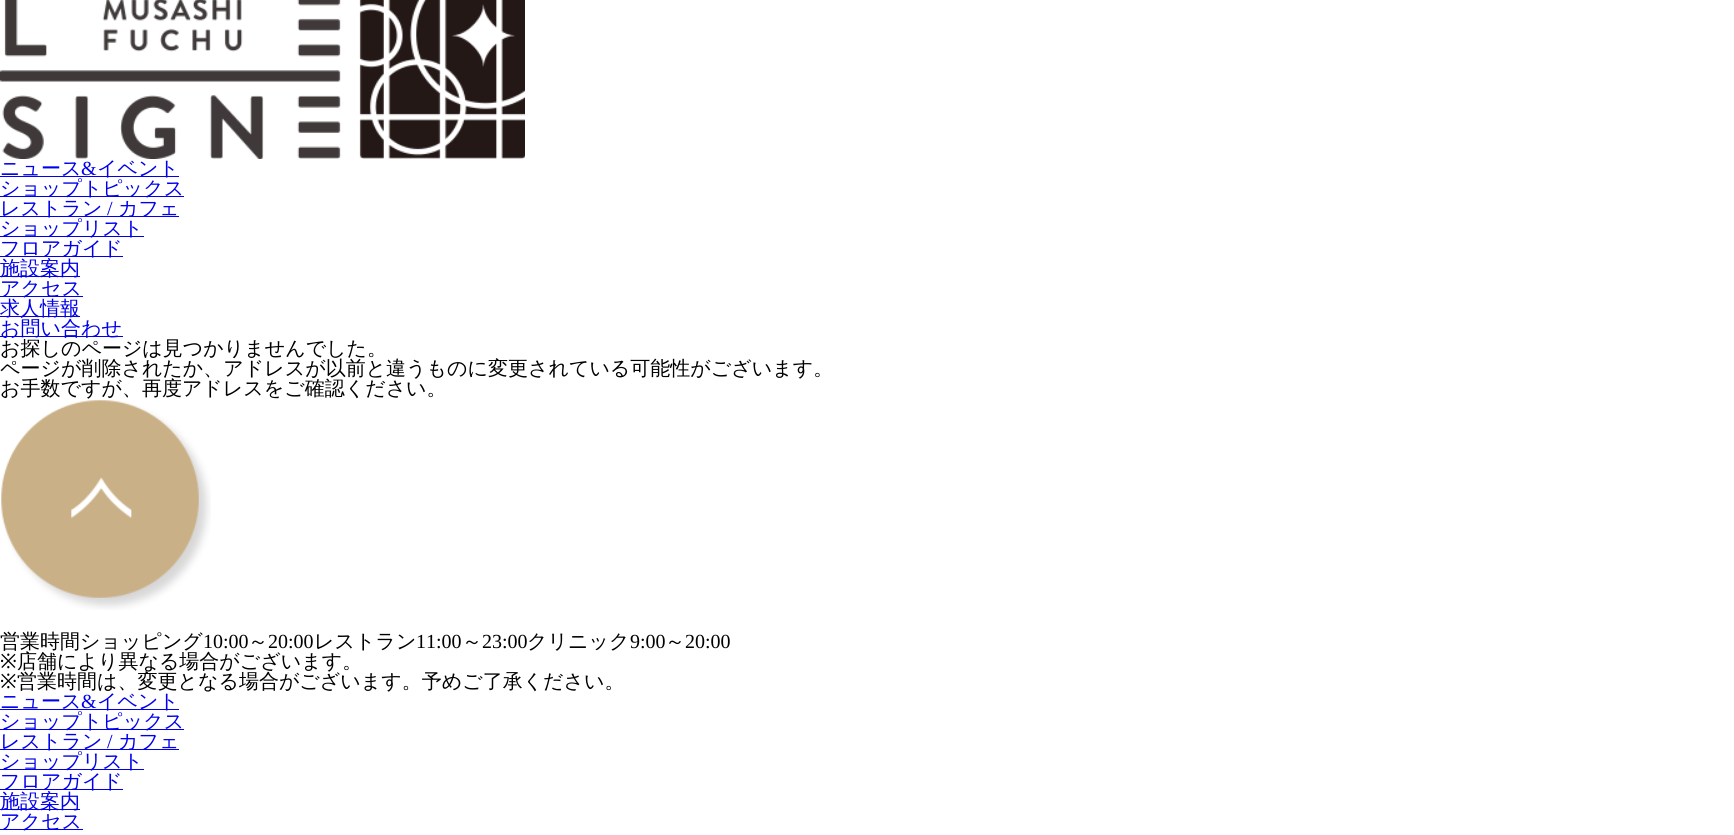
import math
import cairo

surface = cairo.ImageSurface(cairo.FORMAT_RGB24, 1734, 835)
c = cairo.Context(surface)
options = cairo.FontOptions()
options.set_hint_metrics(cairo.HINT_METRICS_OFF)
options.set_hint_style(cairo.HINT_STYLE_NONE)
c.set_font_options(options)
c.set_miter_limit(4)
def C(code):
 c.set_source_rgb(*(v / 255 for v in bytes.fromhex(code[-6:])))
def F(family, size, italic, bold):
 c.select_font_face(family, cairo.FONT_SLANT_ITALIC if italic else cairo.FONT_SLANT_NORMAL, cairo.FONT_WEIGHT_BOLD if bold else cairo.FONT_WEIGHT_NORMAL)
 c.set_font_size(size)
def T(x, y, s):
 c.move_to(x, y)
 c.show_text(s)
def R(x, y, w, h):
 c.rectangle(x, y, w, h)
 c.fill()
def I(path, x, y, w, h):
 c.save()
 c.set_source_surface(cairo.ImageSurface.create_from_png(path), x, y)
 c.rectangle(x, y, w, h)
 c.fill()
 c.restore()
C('ffffff')
c.paint()
I('1.png',0,0,525,159)
F('WenQuanYi Zen Hei Medium',20,0,0)
C('0000ee')
T(0,175,'ニュース')
R(0,176,179,1)
F('Liberation Serif',20,0,0)
T(81,175,'&')
F('WenQuanYi Zen Hei Medium',20,0,0)
T(97,175,'イベント')
R(0,196,184,1)
T(0,195,'ショップトピックス')
R(0,216,179,1)
T(0,215,'レストラン')
F('Liberation Serif',20,0,0)
T(107,215,'/')
F('WenQuanYi Zen Hei Medium',20,0,0)
T(118,215,'カフェ')
R(0,236,144,1)
T(0,235,'ショップリスト')
R(0,256,123,1)
T(0,255,'フロアガイド')
R(0,276,80,1)
T(0,275,'施設案内')
R(0,296,83,1)
T(0,295,'アクセス')
R(0,316,80,1)
T(0,315,'求人情報')
R(0,336,123,1)
T(0,335,'お問い合わせ')
C('000000')
T(0,355,'お探しのページは見つかりませんでした。')
T(0,375,'ページが削除されたか、アドレスが以前と違うものに変更されている可能性がございます。')
T(0,395,'お手数ですが、再度アドレスをご確認ください。')
I('2.png',1,400,210,210)
T(0,648,'営業時間ショッピング')
F('Liberation Serif',20,0,0)
T(203,648,'10:00')
F('WenQuanYi Zen Hei Medium',20,0,0)
T(248,648,'～')
F('Liberation Serif',20,0,0)
T(268,648,'20:00')
F('WenQuanYi Zen Hei Medium',20,0,0)
T(314,648,'レストラン')
F('Liberation Serif',20,0,0)
T(416,648,'11:00')
F('WenQuanYi Zen Hei Medium',20,0,0)
T(462,648,'～')
F('Liberation Serif',20,0,0)
T(482,648,'23:00')
F('WenQuanYi Zen Hei Medium',20,0,0)
T(527,648,'クリニック')
F('Liberation Serif',20,0,0)
T(630,648,'9:00')
F('WenQuanYi Zen Hei Medium',20,0,0)
T(665,648,'～')
F('Liberation Serif',20,0,0)
T(685,648,'20:00')
F('Noto Sans',20,0,0)
T(0,668,'※')
F('WenQuanYi Zen Hei Medium',20,0,0)
T(17,668,'店舗により異なる場合がございます。')
F('Noto Sans',20,0,0)
T(0,688,'※')
F('WenQuanYi Zen Hei Medium',20,0,0)
T(17,688,'営業時間は、変更となる場合がございます。予めご了承ください。')
C('0000ee')
T(0,708,'ニュース')
R(0,709,179,1)
F('Liberation Serif',20,0,0)
T(81,708,'&')
F('WenQuanYi Zen Hei Medium',20,0,0)
T(97,708,'イベント')
R(0,729,184,1)
T(0,728,'ショップトピックス')
R(0,749,179,1)
T(0,748,'レストラン')
F('Liberation Serif',20,0,0)
T(107,748,'/')
F('WenQuanYi Zen Hei Medium',20,0,0)
T(118,748,'カフェ')
R(0,769,144,1)
T(0,768,'ショップリスト')
R(0,789,123,1)
T(0,788,'フロアガイド')
R(0,809,80,1)
T(0,808,'施設案内')
R(0,829,83,1)
T(0,828,'アクセス')
surface.write_to_png('o.png')
